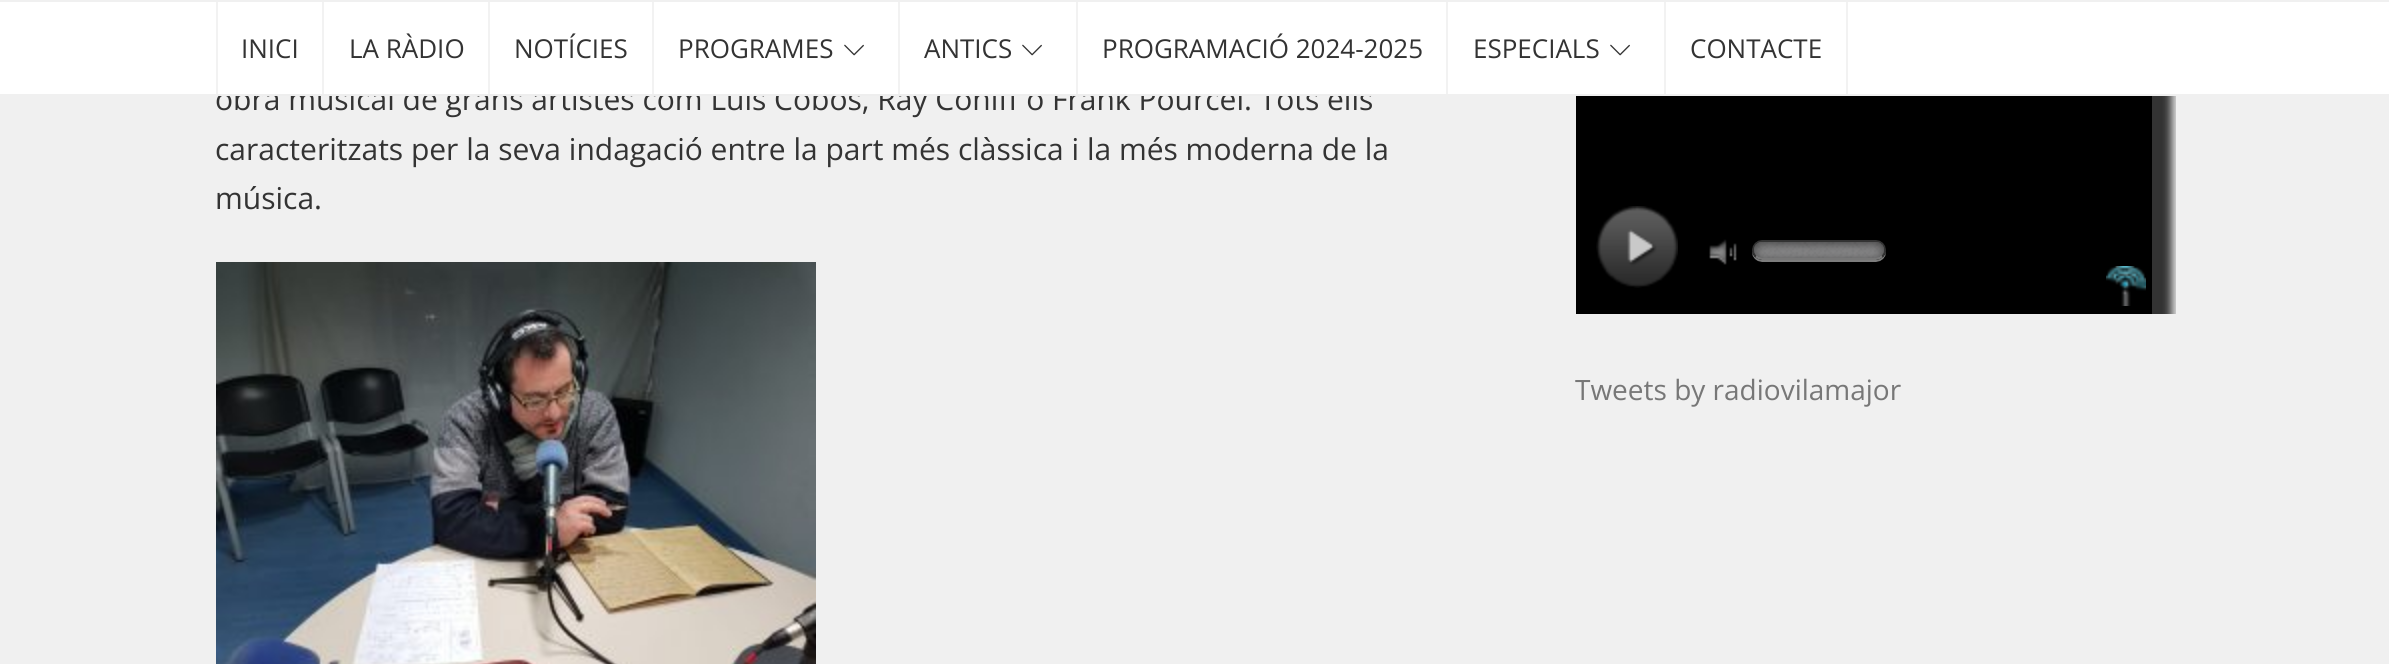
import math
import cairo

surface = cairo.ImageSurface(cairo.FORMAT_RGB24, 2389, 664)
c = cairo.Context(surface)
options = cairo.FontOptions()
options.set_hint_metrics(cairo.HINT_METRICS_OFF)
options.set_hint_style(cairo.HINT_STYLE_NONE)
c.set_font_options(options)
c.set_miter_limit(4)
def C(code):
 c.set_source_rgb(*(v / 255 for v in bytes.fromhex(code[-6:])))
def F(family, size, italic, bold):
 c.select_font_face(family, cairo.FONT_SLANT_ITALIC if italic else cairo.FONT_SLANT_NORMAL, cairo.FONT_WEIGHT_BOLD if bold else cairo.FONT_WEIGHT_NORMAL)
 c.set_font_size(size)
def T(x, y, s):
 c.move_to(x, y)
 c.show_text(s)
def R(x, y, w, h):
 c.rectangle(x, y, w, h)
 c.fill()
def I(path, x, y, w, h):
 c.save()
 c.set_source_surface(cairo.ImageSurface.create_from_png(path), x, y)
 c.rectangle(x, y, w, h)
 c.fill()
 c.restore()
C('f0f0f0')
c.paint()
F('Open Sans',30,0,0)
C('333333')
T(215,110,'obra musical de grans artistes com Luis Cobos, Ray Coniff o Frank Pourcel. Tots ells')
C('ffffff')
R(0,2,2389,92)
C('eeeeee')
R(218,94,1154,2)
C('f2f2f2')
R(216,2,2,92)
F('Open Sans',26,0,0)
C('333333')
T(241,58,'INICI')
C('f2f2f2')
R(322,2,2,92)
C('333333')
T(349,58,'LA RÀDIO')
C('f2f2f2')
R(488,2,2,92)
C('333333')
T(514,58,'NOTÍCIES')
C('f2f2f2')
R(652,2,2,92)
C('333333')
T(678,58,'PROGRAMES')
I('1.png',844,44,20,12)
C('f2f2f2')
R(898,2,2,92)
C('333333')
T(924,58,'ANTICS')
I('1.png',1022,44,20,12)
C('f2f2f2')
R(1076,2,2,92)
C('333333')
T(1102,58,'PROGRAMACIÓ 2024-2025')
C('f2f2f2')
R(1446,2,2,92)
C('333333')
T(1473,58,'ESPECIALS')
I('1.png',1610,44,20,12)
C('f2f2f2')
R(1846,2,2,92)
R(1664,2,2,92)
C('333333')
T(1690,58,'CONTACTE')
F('Open Sans',30,0,0)
T(215,160,'caracteritzats per la seva indagació entre la part més clàssica i la més moderna de la')
T(215,209,'música.')
I('2.png',216,262,600,402)
I('3.png',1576,96,600,218)
F('Open Sans',28,0,0)
C('777777')
T(1575,400,'Tweets by radiovilamajor')
surface.write_to_png('o.png')
